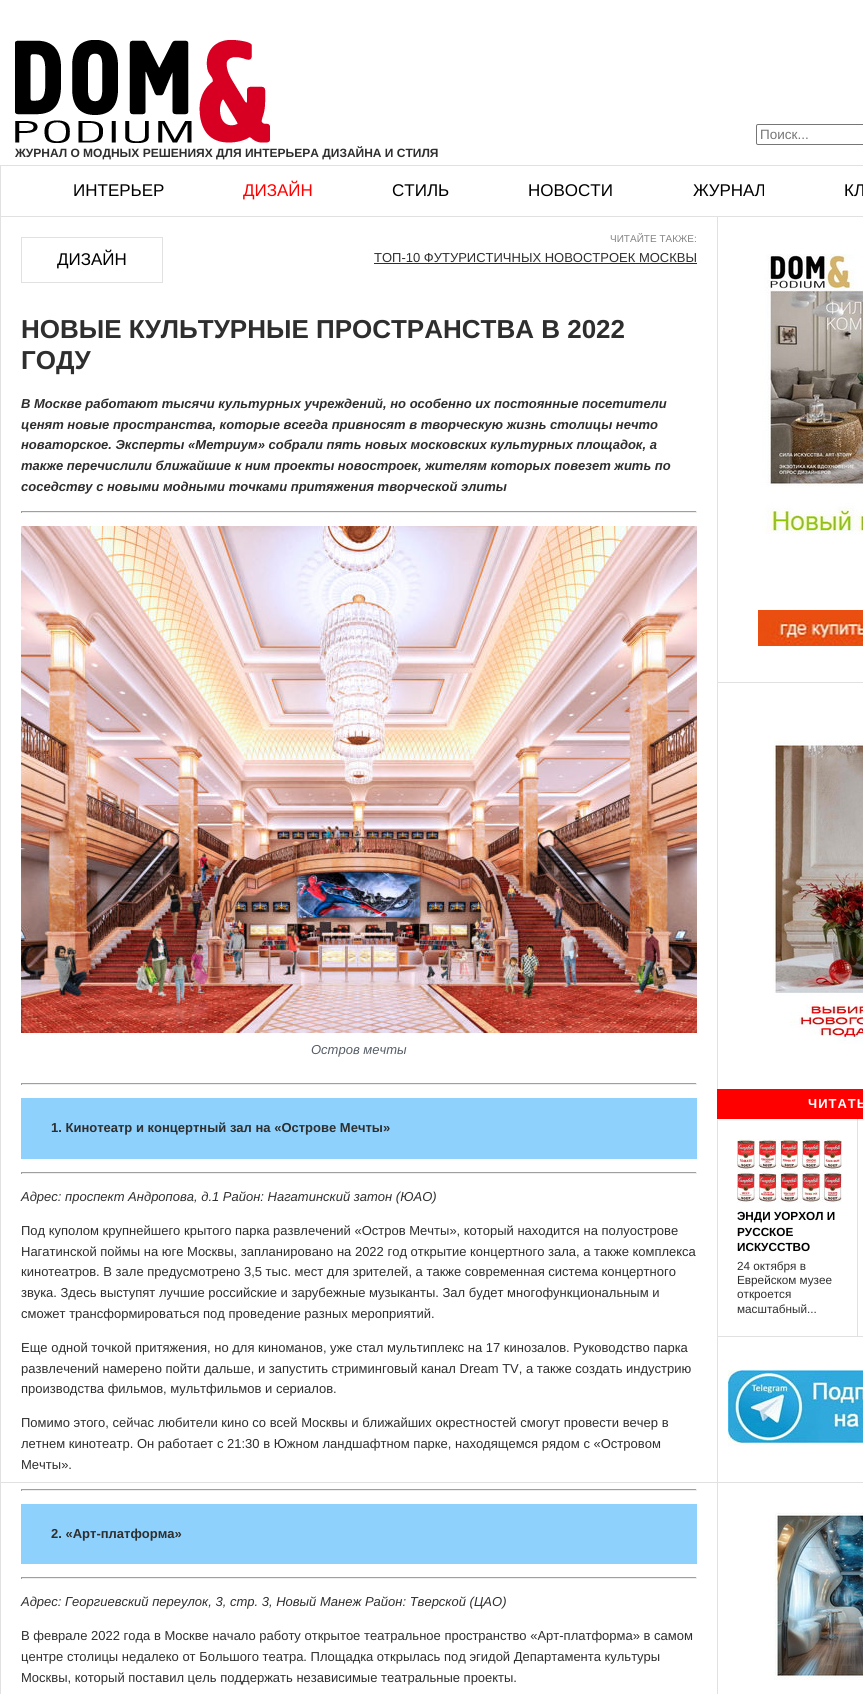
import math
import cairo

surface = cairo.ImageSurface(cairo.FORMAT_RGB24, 863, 1694)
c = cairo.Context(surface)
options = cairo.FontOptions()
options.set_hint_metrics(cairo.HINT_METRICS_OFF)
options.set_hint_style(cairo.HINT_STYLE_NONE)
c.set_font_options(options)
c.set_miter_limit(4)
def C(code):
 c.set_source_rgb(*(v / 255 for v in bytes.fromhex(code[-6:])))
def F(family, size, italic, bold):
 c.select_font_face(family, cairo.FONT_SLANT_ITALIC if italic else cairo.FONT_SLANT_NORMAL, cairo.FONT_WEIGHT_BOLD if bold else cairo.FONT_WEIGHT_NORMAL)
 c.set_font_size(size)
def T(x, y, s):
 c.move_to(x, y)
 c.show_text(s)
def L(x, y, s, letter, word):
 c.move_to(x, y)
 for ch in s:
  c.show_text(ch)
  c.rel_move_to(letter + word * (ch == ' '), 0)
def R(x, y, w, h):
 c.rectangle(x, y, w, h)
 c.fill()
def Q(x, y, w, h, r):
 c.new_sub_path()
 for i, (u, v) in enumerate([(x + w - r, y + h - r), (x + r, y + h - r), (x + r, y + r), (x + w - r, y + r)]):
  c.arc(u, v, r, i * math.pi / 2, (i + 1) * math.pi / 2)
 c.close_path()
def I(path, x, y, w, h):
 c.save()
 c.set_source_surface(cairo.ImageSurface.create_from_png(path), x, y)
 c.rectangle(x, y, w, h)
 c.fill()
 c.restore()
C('ffffff')
c.paint()
Q(756.5,124.5,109,20,1.5)
C('767676')
c.set_line_width(1)
c.stroke()
F('Liberation Sans',13.5,0,0)
C('757575')
T(760,139,'Поиск...')
I('1.png',15,40,255,103)
F('Liberation Sans',12,0,1)
C('2e2e2e')
T(15,157,'ЖУРНАЛ О МОДНЫХ РЕШЕНИЯХ ДЛЯ ИНТЕРЬЕРА ДИЗАЙНА И СТИЛЯ')
C('e1e1e1')
R(0,165,863,1)
R(0,165,1,51)
F('Liberation Sans',17,0,0)
C('000000')
T(73,196,'ИНТЕРЬЕР')
C('ff0000')
T(243,196,'ДИЗАЙН')
C('000000')
T(392,196,'СТИЛЬ')
T(528,196,'НОВОСТИ')
T(693,196,'ЖУРНАЛ')
T(844,196,'КЛ')
c.rectangle(.5,216.5,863,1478)
C('e1e1e1')
c.stroke()
R(1,1482,862,1)
c.save()
c.rectangle(1,217,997,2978)
c.clip()
c.rectangle(.5,216.5,717,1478)
c.stroke()
c.restore()
c.rectangle(21.5,237.5,141,45)
c.stroke()
C('000000')
T(57,265,'ДИЗАЙН')
F('Liberation Sans',10,0,0)
C('848484')
T(610,242,'ЧИТАЙТЕ ТАКЖЕ:')
F('Liberation Sans',13,0,0)
C('2e2e2e')
T(374,262,'ТОП-10 ФУТУРИСТИЧНЫХ НОВОСТРОЕК МОСКВЫ')
R(374,263,323,1)
F('Liberation Sans',26,0,1)
T(21,338,'НОВЫЕ КУЛЬТУРНЫЕ ПРОСТРАНСТВА В 2022')
T(21,369,'ГОДУ')
F('Liberation Sans',13,1,1)
T(21,408,'В Москве работают тысячи культурных учреждений, но особенно их постоянные посетители')
T(21,429,'ценят новые пространства, которые всегда привносят в творческую жизнь столицы нечто')
T(21,449,'новаторское. Эксперты «Метриум» собрали пять новых московских культурных площадок, а')
T(21,470,'также перечислили ближайшие к ним проекты новостроек, жителям которых повезет жить по')
T(21,491,'соседству с новыми модными точками притяжения творческой элиты')
C('9f9f9f')
R(21,511,676,1)
C('eeeeee')
R(696,511,1,2)
R(21,512,676,1)
C('9f9f9f')
R(21,511,1,2)
I('2.png',21,526,676,507)
F('Liberation Sans',13,1,0)
C('555d66')
T(311,1054,'Остров мечты')
C('9f9f9f')
R(21,1083,676,1)
C('eeeeee')
R(696,1083,1,2)
R(21,1084,676,1)
C('9f9f9f')
R(21,1083,1,2)
C('8ed1fc')
R(21,1098,676,61)
F('Liberation Sans',13,0,1)
C('2e2e2e')
T(51,1132,'1. Кинотеатр и концертный зал на «Острове Мечты»')
C('9f9f9f')
R(21,1172,676,1)
C('eeeeee')
R(696,1172,1,2)
R(21,1173,676,1)
C('9f9f9f')
R(21,1172,1,2)
F('Liberation Sans',13,1,0)
C('2e2e2e')
T(21,1201,'Адрес: проспект Андропова, д.1 Район: Нагатинский затон (ЮАО)')
F('Liberation Sans',13,0,0)
T(21,1235,'Под куполом крупнейшего крытого парка развлечений «Остров Мечты», который находится на полуострове')
T(21,1256,'Нагатинской поймы на юге Москвы, запланировано на 2022 год открытие концертного зала, а также комплекса')
T(21,1276,'кинотеатров. В зале предусмотрено 3,5 тыс. мест для зрителей, а также современная система концертного')
T(21,1297,'звука. Здесь выступят лучшие российские и зарубежные музыканты. Зал будет многофункциональным и')
T(21,1318,'сможет трансформироваться под проведение разных мероприятий.')
T(21,1352,'Еще одной точкой притяжения, но для киноманов, уже стал мультиплекс на 17 кинозалов. Руководство парка')
T(21,1373,'развлечений намерено пойти дальше, и запустить стриминговый канал Dream TV, а также создать индустрию')
T(21,1393,'производства фильмов, мультфильмов и сериалов.')
T(21,1427,'Помимо этого, сейчас любители кино со всей Москвы и ближайших окрестностей смогут провести вечер в')
T(21,1448,'летнем кинотеатр. Он работает с 21:30 в Южном ландшафтном парке, находящемся рядом с «Островом')
T(21,1469,'Мечты».')
C('9f9f9f')
R(21,1489,676,1)
C('eeeeee')
R(696,1489,1,2)
R(21,1490,676,1)
C('9f9f9f')
R(21,1489,1,2)
C('8ed1fc')
R(21,1504,676,60)
F('Liberation Sans',13,0,1)
C('2e2e2e')
T(51,1538,'2. «Арт-платформа»')
C('9f9f9f')
R(21,1577,676,1)
C('eeeeee')
R(696,1577,1,2)
R(21,1578,676,1)
C('9f9f9f')
R(21,1577,1,2)
F('Liberation Sans',13,1,0)
C('2e2e2e')
T(21,1606,'Адрес: Георгиевский переулок, 3, стр. 3, Новый Манеж Район: Тверской (ЦАО)')
F('Liberation Sans',13,0,0)
T(21,1640,'В феврале 2022 года в Москве начало работу открытое театральное пространство «Арт-платформа» в самом')
T(21,1661,'центре столицы недалеко от Большого театра. Площадка открылась под эгидой Департамента культуры')
T(21,1682,'Москвы, который поставил цель поддержать независимые театральные проекты.')
I('3.png',762,254,101,280)
C('e1e1e1')
R(718,682,145,1)
I('4.png',758,610,105,36)
I('5.png',773,740,90,304)
R(717,1336,146,1)
C('ff0000')
R(717,1089,146,30)
F('Liberation Sans',13,0,1)
C('ffffff')
L(808,1108,'ЧИТАТЬ',1,0)
C('e1e1e1')
R(857,1119,1,217)
I('6.png',737,1139,105,64)
F('Liberation Sans',11.75,0,1)
C('000000')
T(737,1220,'ЭНДИ УОРХОЛ И')
T(737,1236,'РУССКОЕ')
T(737,1251,'ИСКУССТВО')
F('Liberation Sans',11.75,0,0)
C('2e2e2e')
T(737,1270,'24 октября в')
T(737,1284,'Еврейском музее')
T(737,1298,'откроется')
T(737,1313,'масштабный...')
I('7.png',728,1370,135,76)
I('8.png',773,1512,90,168)
surface.write_to_png('o.png')
